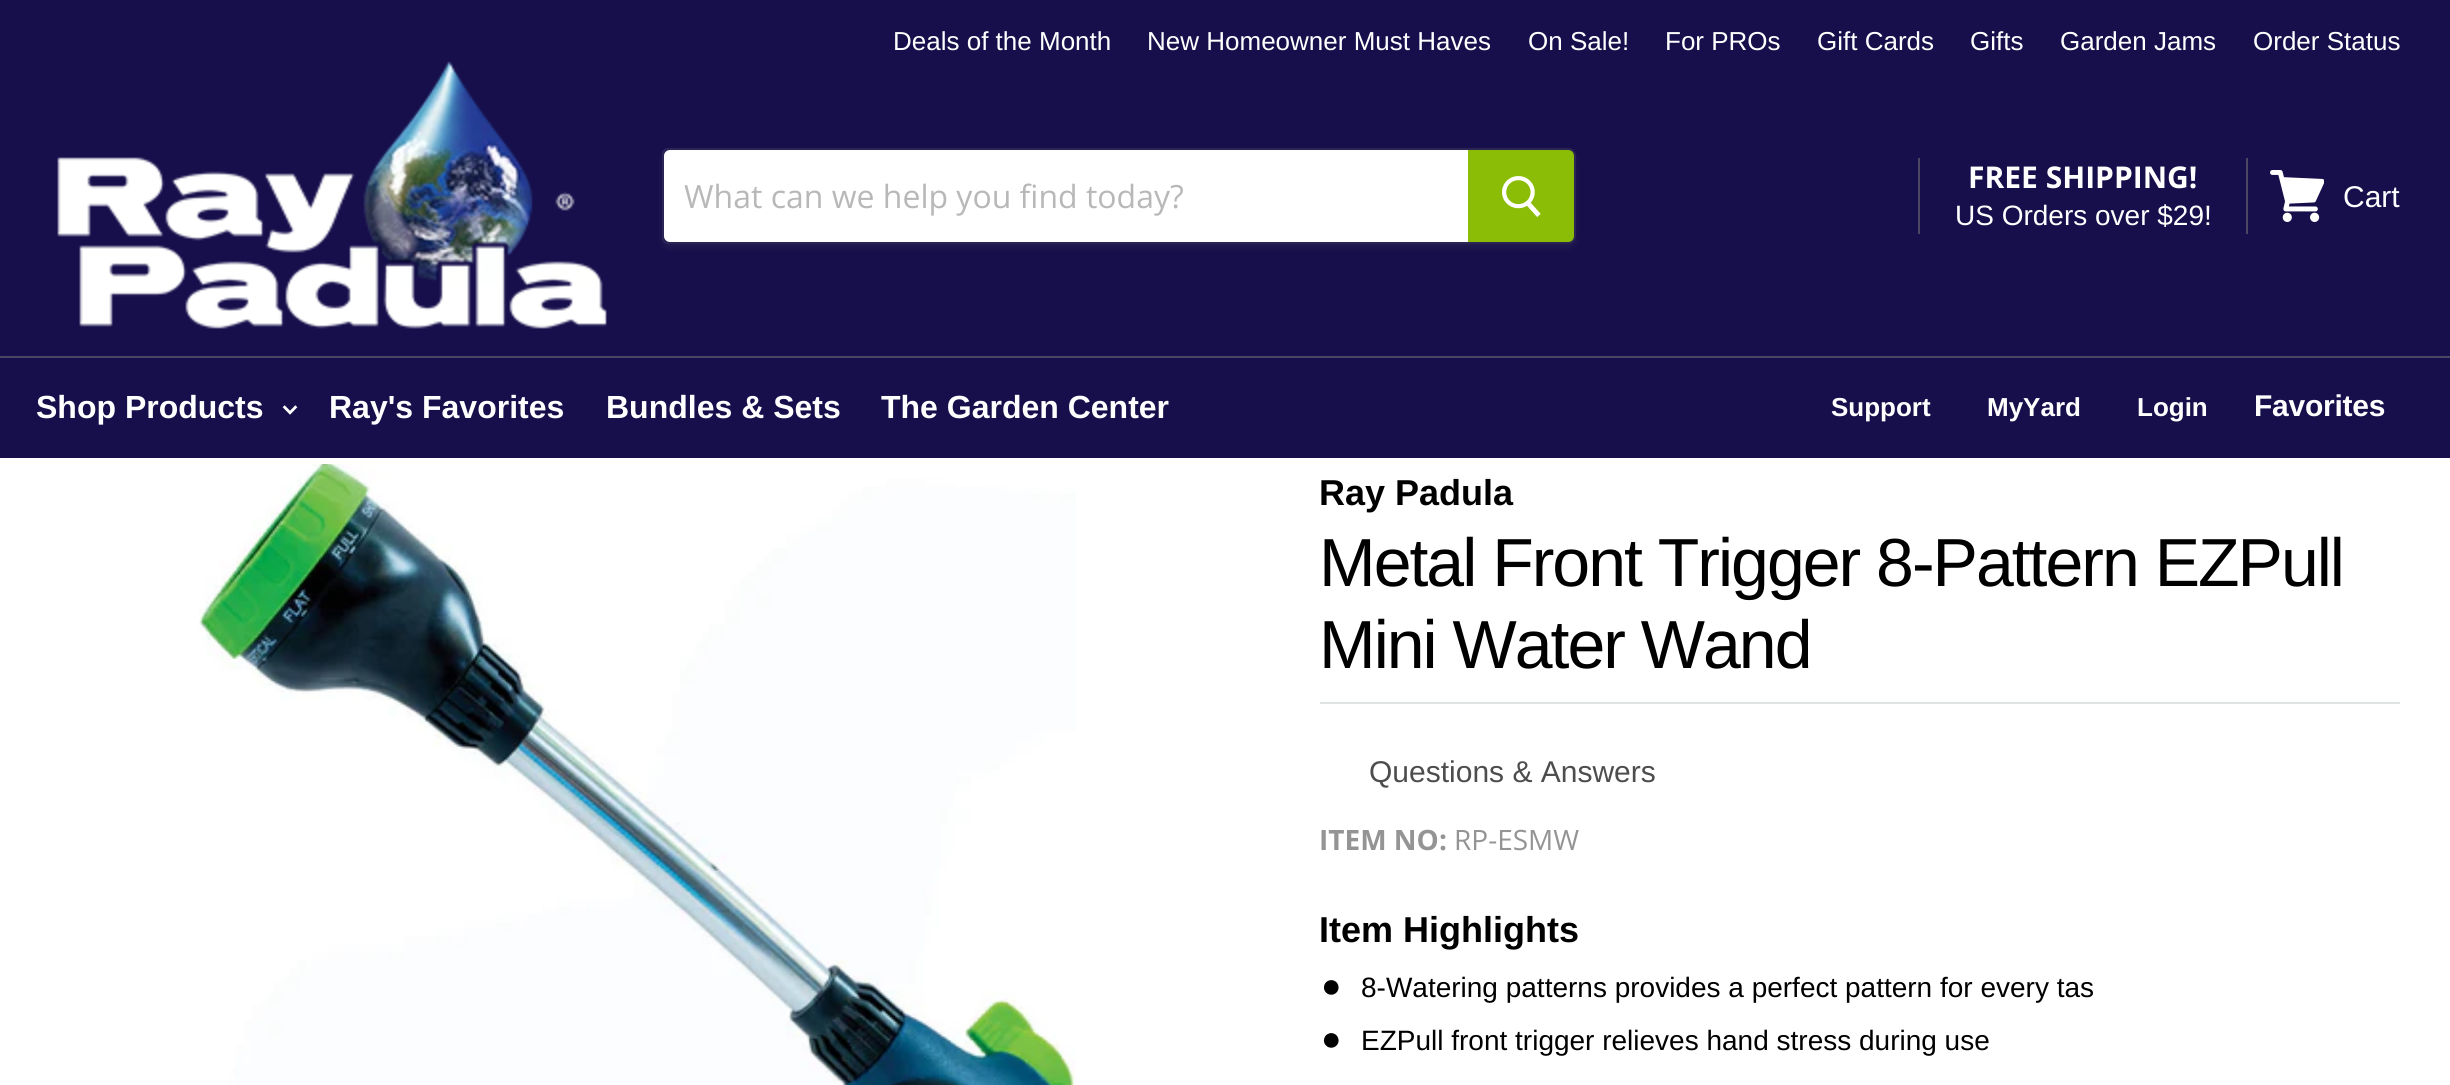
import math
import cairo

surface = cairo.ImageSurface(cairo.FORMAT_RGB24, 2450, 1085)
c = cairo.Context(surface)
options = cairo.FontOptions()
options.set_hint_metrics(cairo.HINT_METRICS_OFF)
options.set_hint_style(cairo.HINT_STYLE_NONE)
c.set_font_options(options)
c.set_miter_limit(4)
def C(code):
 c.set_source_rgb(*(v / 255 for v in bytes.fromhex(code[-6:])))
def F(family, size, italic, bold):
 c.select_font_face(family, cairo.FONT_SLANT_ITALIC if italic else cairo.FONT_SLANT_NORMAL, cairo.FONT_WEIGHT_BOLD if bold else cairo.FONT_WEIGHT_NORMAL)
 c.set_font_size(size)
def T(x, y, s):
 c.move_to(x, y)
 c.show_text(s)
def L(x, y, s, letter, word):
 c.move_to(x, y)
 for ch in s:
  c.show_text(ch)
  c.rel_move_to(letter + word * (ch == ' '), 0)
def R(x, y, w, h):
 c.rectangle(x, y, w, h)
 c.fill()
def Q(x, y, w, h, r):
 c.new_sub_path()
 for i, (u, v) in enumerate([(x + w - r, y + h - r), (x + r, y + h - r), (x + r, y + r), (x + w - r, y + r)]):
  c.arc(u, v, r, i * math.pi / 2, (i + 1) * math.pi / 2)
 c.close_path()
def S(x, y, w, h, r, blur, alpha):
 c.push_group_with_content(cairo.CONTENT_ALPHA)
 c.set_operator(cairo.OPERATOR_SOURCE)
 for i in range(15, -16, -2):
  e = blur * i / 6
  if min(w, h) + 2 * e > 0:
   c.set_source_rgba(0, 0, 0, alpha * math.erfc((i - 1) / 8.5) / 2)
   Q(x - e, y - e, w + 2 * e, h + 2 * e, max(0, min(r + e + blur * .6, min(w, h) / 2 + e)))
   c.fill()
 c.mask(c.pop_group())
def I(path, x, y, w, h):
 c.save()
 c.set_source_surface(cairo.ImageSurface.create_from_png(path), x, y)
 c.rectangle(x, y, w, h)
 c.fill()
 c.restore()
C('ffffff')
c.paint()
C('170f4b')
R(0,0,2450,458)
F('Liberation Sans',26,0,0)
C('ffffff')
T(893,50,'Deals of the Month')
T(1147,50,'New Homeowner Must Haves')
T(1528,50,'On Sale!')
T(1665,50,'For PROs')
T(1817,50,'Gift Cards')
T(1970,50,'Gifts')
T(2060,50,'Garden Jams')
T(2253,50,'Order Status')
I('1.png',57,61,550,268)
c.save()
c.set_fill_rule(cairo.FILL_RULE_EVEN_ODD)
c.new_path()
c.move_to(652,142)
c.line_to(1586,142)
c.line_to(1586,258)
c.line_to(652,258)
c.close_path()
c.move_to(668,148)
c.line_to(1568,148)
c.curve_to(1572.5,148,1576,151.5,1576,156)
c.line_to(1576,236)
c.curve_to(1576,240.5,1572.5,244,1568,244)
c.line_to(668,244)
c.curve_to(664.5,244,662,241.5,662,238)
c.line_to(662,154)
c.curve_to(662,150.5,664.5,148,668,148)
c.close_path()
c.clip()
C('7f7f7f')
S(662,152,914,96,8,3,.11)
c.restore()
c.new_path()
c.move_to(668,149)
c.line_to(1568,149)
c.curve_to(1572,149,1575,152,1575,156)
c.line_to(1575,236)
c.curve_to(1575,240,1572,243,1568,243)
c.line_to(668,243)
c.curve_to(665,243,663,241,663,238)
c.line_to(663,154)
c.curve_to(663,151,665,149,668,149)
c.close_path()
c.set_source_rgba(0.498,0.498,0.498,0.2)
c.stroke()
C('ffffff')
c.new_path()
c.move_to(670,150)
c.line_to(1468,150)
c.line_to(1468,242)
c.line_to(670,242)
c.curve_to(666.5,242,664,239.5,664,236)
c.line_to(664,156)
c.curve_to(664,152.5,666.5,150,670,150)
c.close_path()
c.fill()
F('Open Sans',32,0,0)
C('b8b8b8')
T(684,208,'What can we help you find today?')
C('8cbd06')
c.new_path()
c.move_to(1469,151)
c.line_to(1568,151)
c.curve_to(1571,151,1573,153,1573,156)
c.line_to(1573,236)
c.curve_to(1573,239,1571,241,1568,241)
c.line_to(1469,241)
c.close_path()
c.fill_preserve()
c.stroke()
I('2.png',1502,176,39,41)
C('4c4664')
R(2246,158,2,76)
R(1918,158,2,76)
F('Open Sans',30,0,1)
C('ffffff')
T(1968,188,'FREE SHIPPING!')
F('Liberation Sans',28,0,0)
T(1955,225,'US Orders over $29!')
I('3.png',2270,170,54,52)
F('Liberation Sans',30,0,0)
T(2343,207,'Cart')
C('4c4664')
R(0,356,2450,2)
F('Liberation Sans',32,0,1)
C('ffffff')
T(36,418,'Shop Products')
I('4.png',282,405,16,10)
T(329,418,'Ray\'s Favorites')
T(606,418,'Bundles & Sets')
T(881,418,'The Garden Center')
F('Liberation Sans',26,0,1)
T(1831,416,'Support')
T(1987,416,'MyYard')
T(2137,416,'Login')
F('Liberation Sans',30,0,1)
L(2254,416,'Favorites',-.25,0)
I('5.png',199,464,877,621)
F('Liberation Sans',36,0,1)
C('000000')
T(1319,505,'Ray Padula')
C('e0e3e3')
R(1320,702,1080,2)
F('Liberation Sans',68,0,0)
C('000000')
L(1319,586,'Metal Front Trigger 8-Pattern EZPull',-2,0)
L(1319,668,'Mini Water Wand',-2,0)
F('Liberation Sans',30,0,0)
C('4d4d4d')
T(1369,782,'Questions & Answers')
F('Open Sans',28,0,1)
C('949494')
T(1319,850,'ITEM NO:')
F('Open Sans',28,0,0)
T(1454,850,'RP-ESMW')
F('Liberation Sans',36,0,1)
C('000000')
T(1319,942,'Item Highlights')
F('Liberation Sans',34,0,0)
T(1321,997,'●')
F('Liberation Sans',28,0,0)
T(1361,997,'8-Watering patterns provides a perfect pattern for every tas')
F('Liberation Sans',34,0,0)
T(1321,1050,'●')
F('Liberation Sans',28,0,0)
T(1361,1050,'EZPull front trigger relieves hand stress during use')
surface.write_to_png('o.png')
